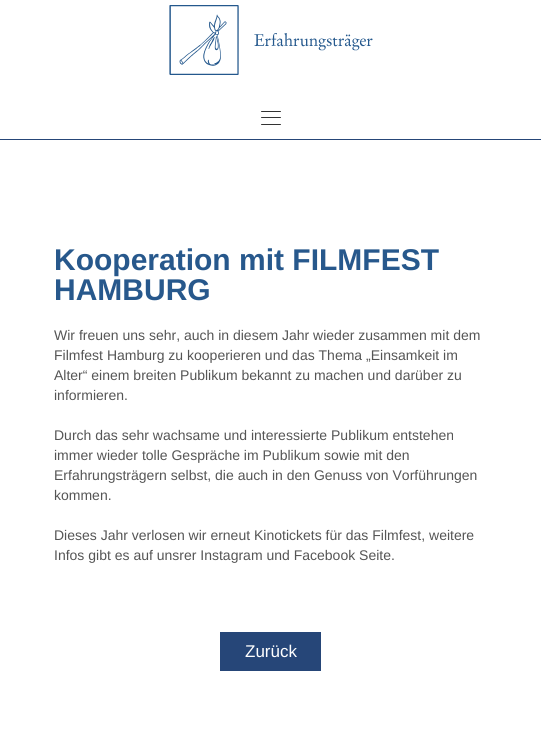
import math
import cairo

surface = cairo.ImageSurface(cairo.FORMAT_RGB24, 541, 742)
c = cairo.Context(surface)
options = cairo.FontOptions()
options.set_hint_metrics(cairo.HINT_METRICS_OFF)
options.set_hint_style(cairo.HINT_STYLE_NONE)
c.set_font_options(options)
c.set_miter_limit(4)
def C(code):
 c.set_source_rgb(*(v / 255 for v in bytes.fromhex(code[-6:])))
def F(family, size, italic, bold):
 c.select_font_face(family, cairo.FONT_SLANT_ITALIC if italic else cairo.FONT_SLANT_NORMAL, cairo.FONT_WEIGHT_BOLD if bold else cairo.FONT_WEIGHT_NORMAL)
 c.set_font_size(size)
def T(x, y, s):
 c.move_to(x, y)
 c.show_text(s)
def R(x, y, w, h):
 c.rectangle(x, y, w, h)
 c.fill()
def Q(x, y, w, h, r):
 c.new_sub_path()
 for i, (u, v) in enumerate([(x + w - r, y + h - r), (x + r, y + h - r), (x + r, y + r), (x + w - r, y + r)]):
  c.arc(u, v, r, i * math.pi / 2, (i + 1) * math.pi / 2)
 c.close_path()
def I(path, x, y, w, h):
 c.save()
 c.set_source_surface(cairo.ImageSurface.create_from_png(path), x, y)
 c.rectangle(x, y, w, h)
 c.fill()
 c.restore()
C('ffffff')
c.paint()
C('264678')
R(0,139,541,1)
I('1.png',169,5,204,70)
C('333333')
Q(261,111,20,1,.5)
c.fill()
Q(261,117,20,1,.5)
c.fill()
Q(261,124,20,1,.5)
c.fill()
F('Liberation Sans',30,0,1)
C('27588c')
T(54,270,'Kooperation mit FILMFEST')
T(54,300,'HAMBURG')
F('Liberation Sans',14,0,0)
C('555555')
T(54,340,'Wir freuen uns sehr, auch in diesem Jahr wieder zusammen mit dem')
T(54,360,'Filmfest Hamburg zu kooperieren und das Thema „Einsamkeit im')
T(54,380,'Alter“ einem breiten Publikum bekannt zu machen und darüber zu')
T(54,400,'informieren.')
T(54,440,'Durch das sehr wachsame und interessierte Publikum entstehen')
T(54,460,'immer wieder tolle Gespräche im Publikum sowie mit den')
T(54,480,'Erfahrungsträgern selbst, die auch in den Genuss von Vorführungen')
T(54,500,'kommen.')
T(54,540,'Dieses Jahr verlosen wir erneut Kinotickets für das Filmfest, weitere')
T(54,560,'Infos gibt es auf unsrer Instagram und Facebook Seite.')
C('264678')
R(220,632,101,39)
F('Liberation Sans',17,0,0)
C('ffffff')
T(245,657,'Zurück')
surface.write_to_png('o.png')
